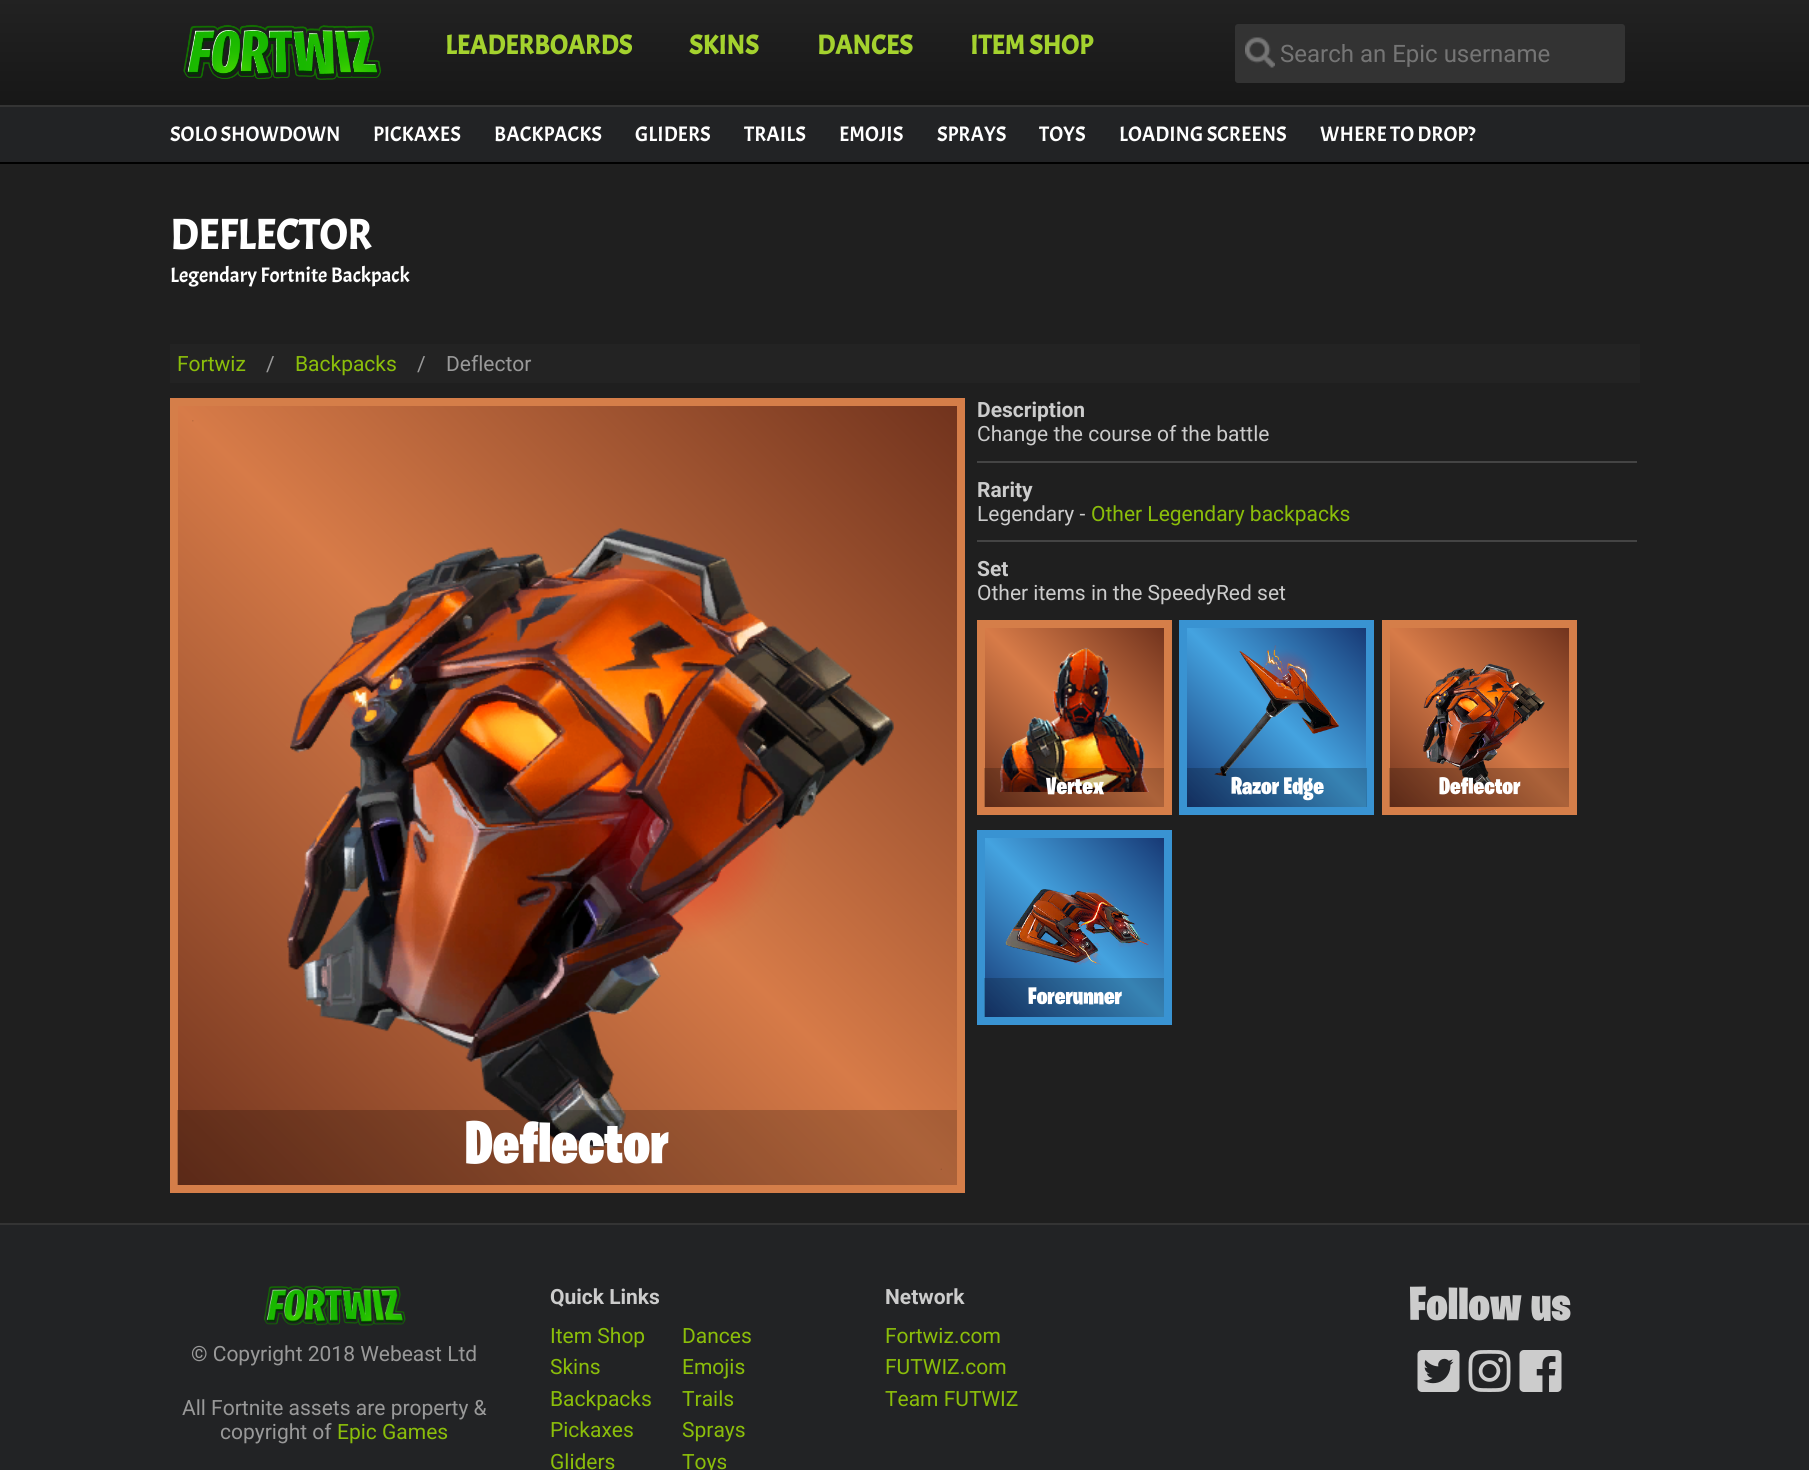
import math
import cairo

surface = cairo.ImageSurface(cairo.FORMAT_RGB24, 1809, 1470)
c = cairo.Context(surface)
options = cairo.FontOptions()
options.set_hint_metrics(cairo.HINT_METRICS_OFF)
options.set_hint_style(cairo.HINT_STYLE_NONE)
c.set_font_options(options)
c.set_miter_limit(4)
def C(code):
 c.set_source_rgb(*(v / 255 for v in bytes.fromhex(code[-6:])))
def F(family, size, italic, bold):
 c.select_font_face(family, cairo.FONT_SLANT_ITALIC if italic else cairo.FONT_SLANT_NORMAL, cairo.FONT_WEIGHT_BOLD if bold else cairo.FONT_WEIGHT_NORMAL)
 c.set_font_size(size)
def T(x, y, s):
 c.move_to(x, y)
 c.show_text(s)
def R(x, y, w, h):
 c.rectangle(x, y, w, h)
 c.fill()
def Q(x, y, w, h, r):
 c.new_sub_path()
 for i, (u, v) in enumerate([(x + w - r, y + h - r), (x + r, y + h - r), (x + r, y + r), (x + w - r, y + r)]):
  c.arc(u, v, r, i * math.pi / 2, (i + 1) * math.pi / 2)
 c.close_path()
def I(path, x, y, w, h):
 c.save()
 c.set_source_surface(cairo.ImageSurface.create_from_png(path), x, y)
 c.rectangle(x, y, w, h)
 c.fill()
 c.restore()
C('1f1f1f')
c.paint()
gradient = cairo.LinearGradient(905,0,905,162)
gradient.add_color_stop_rgba(0,0.133,0.133,0.133,1)
gradient.add_color_stop_rgba(1,0.067,0.067,0.067,1)
c.set_source(gradient)
R(0,0,1809,105)
C('000000')
R(0,162,1809,2)
I('1.png',183,24,199,56)
F('Acme',27,0,1)
C('a4d22e')
T(445,54,'LEADERBOARDS')
T(689,54,'SKINS')
T(817,54,'DANCES')
T(970,54,'ITEM SHOP')
C('333333')
Q(1235,24,390,59,3)
c.fill()
I('2.png',1245,37,30,31)
F('Roboto',24,0,0)
C('757575')
T(1280,62,'Search an Epic username')
C('222325')
R(0,107,1809,55)
C('343434')
R(0,105,1809,2)
F('Acme',21,0,0)
C('ffffff')
T(170,141,'SOLO SHOWDOWN')
T(373,141,'PICKAXES')
T(494,141,'BACKPACKS')
T(635,141,'GLIDERS')
T(744,141,'TRAILS')
T(839,141,'EMOJIS')
T(937,141,'SPRAYS')
T(1039,141,'TOYS')
T(1119,141,'LOADING SCREENS')
T(1320,141,'WHERE TO DROP?')
F('Acme',42,0,1)
T(170,249,'DEFLECTOR')
F('Acme',21,0,0)
T(170,282,'Legendary Fortnite Backpack')
C('232323')
R(170,344,1470,39)
F('Roboto',21,0,0)
C('8bbe0a')
T(177,371,'Fortwiz')
C('999999')
T(266,371,'/')
C('8bbe0a')
T(295,371,'Backpacks')
C('999999')
T(417,371,'/')
T(446,371,'Deflector')
F('Roboto',21,0,1)
C('cccccc')
T(977,417,'Description')
F('Roboto',21,0,0)
T(977,441,'Change the course of the battle')
C('444444')
R(977,461,660,2)
F('Roboto',21,0,1)
C('cccccc')
T(977,497,'Rarity')
F('Roboto',21,0,0)
T(977,521,'Legendary -')
C('8bbe0a')
T(1091,521,'Other Legendary backpacks')
C('444444')
R(977,540,660,2)
F('Roboto',21,0,1)
C('cccccc')
T(977,576,'Set')
F('Roboto',21,0,0)
T(977,600,'Other items in the SpeedyRed set')
gradient = cairo.LinearGradient(984,807,1164,627)
gradient.add_color_stop_rgba(0,0.443,0.2,0.114,1)
gradient.add_color_stop_rgba(.5,0.843,0.482,0.282,1)
gradient.add_color_stop_rgba(1,0.443,0.2,0.114,1)
c.set_source(gradient)
R(985,628,179,179)
c.rectangle(981,624,187,187)
C('d57e49')
c.set_line_width(8)
c.stroke()
I('3.png',1000,647,149,145)
c.set_source_rgba(0,0,0,0.2)
R(984,768,180,39)
F('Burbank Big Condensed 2 Black',24,0,0)
C('ffffff')
T(1046,794,'Vertex')
gradient = cairo.LinearGradient(1187,807,1367,627)
gradient.add_color_stop_rgba(0,0.09,0.22,0.455,1)
gradient.add_color_stop_rgba(.5,0.267,0.639,0.878,1)
gradient.add_color_stop_rgba(1,0.09,0.22,0.455,1)
c.set_source(gradient)
R(1187,628,179,179)
c.rectangle(1183,624,187,187)
C('3993d2')
c.stroke()
I('4.png',1214,645,125,131)
c.set_source_rgba(0,0,0,0.2)
R(1187,768,180,39)
C('ffffff')
T(1231,794,'Razor Edge')
gradient = cairo.LinearGradient(1389,807,1569,627)
gradient.add_color_stop_rgba(0,0.443,0.2,0.114,1)
gradient.add_color_stop_rgba(.5,0.843,0.482,0.282,1)
gradient.add_color_stop_rgba(1,0.443,0.2,0.114,1)
c.set_source(gradient)
R(1390,628,179,179)
c.rectangle(1386,624,187,187)
C('d57e49')
c.stroke()
I('5.png',1423,663,122,125)
c.set_source_rgba(0,0,0,0.2)
R(1389,768,180,39)
C('ffffff')
T(1439,794,'Deflector')
gradient = cairo.LinearGradient(984,1017,1164,837)
gradient.add_color_stop_rgba(0,0.09,0.22,0.455,1)
gradient.add_color_stop_rgba(.5,0.267,0.639,0.878,1)
gradient.add_color_stop_rgba(1,0.09,0.22,0.455,1)
c.set_source(gradient)
R(985,838,179,179)
c.rectangle(981,834,187,187)
C('3993d2')
c.stroke()
I('6.png',1005,889,144,76)
c.set_source_rgba(0,0,0,0.2)
R(984,978,180,39)
C('ffffff')
T(1028,1004,'Forerunner')
gradient = cairo.LinearGradient(177,1185,957,405)
gradient.add_color_stop_rgba(0,0.443,0.2,0.114,1)
gradient.add_color_stop_rgba(.5,0.843,0.482,0.282,1)
gradient.add_color_stop_rgba(1,0.443,0.2,0.114,1)
c.set_source(gradient)
R(178,406,779,779)
c.rectangle(174,402,787,787)
C('d57e49')
c.stroke()
I('7.png',192,420,750,750)
c.set_source_rgba(0,0,0,0.2)
R(177,1110,780,75)
F('Burbank Big Condensed 2 Black',60,0,0)
C('ffffff')
T(465,1163,'Deflector')
C('222325')
R(0,1225,1809,245)
C('343434')
R(0,1223,1809,2)
I('8.png',264,1285,142,41)
F('Roboto',21,0,0)
C('999999')
T(191,1361,'© Copyright 2018 Webeast Ltd')
T(182,1415,'All Fortnite assets are property &')
T(220,1439,'copyright of')
C('8bbe0a')
T(337,1439,'Epic Games')
F('Roboto',21,0,1)
C('cccccc')
T(550,1304,'Quick Links')
F('Roboto',21,0,0)
C('8bbe0a')
T(550,1343,'Item Shop')
T(550,1374,'Skins')
T(550,1406,'Backpacks')
T(550,1437,'Pickaxes')
T(550,1469,'Gliders')
T(682,1343,'Dances')
T(682,1374,'Emojis')
T(682,1406,'Trails')
T(682,1437,'Sprays')
T(682,1469,'Toys')
F('Roboto',21,0,1)
C('cccccc')
T(885,1304,'Network')
F('Roboto',21,0,0)
C('8bbe0a')
T(885,1343,'Fortwiz.com')
T(885,1374,'FUTWIZ.com')
T(885,1406,'Team FUTWIZ')
F('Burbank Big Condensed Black',48,0,0)
C('cccccc')
T(1409,1320,'Follow us')
I('9.png',1417,1350,43,42)
I('10.png',1468,1350,43,42)
I('11.png',1519,1350,43,42)
surface.write_to_png('o.png')
